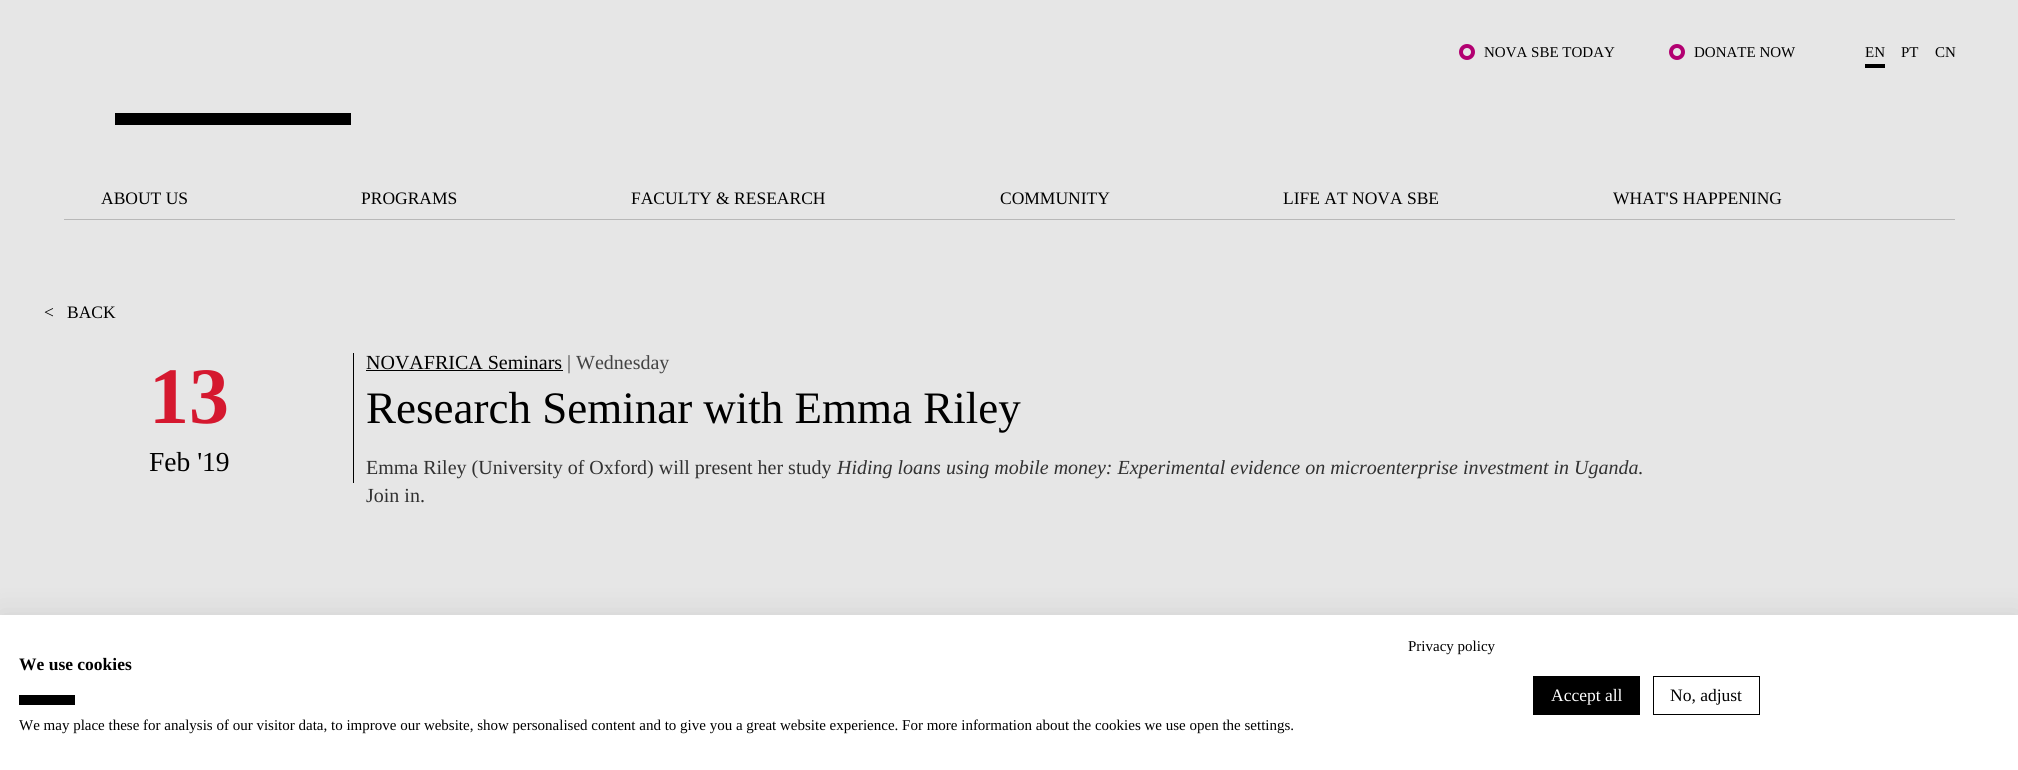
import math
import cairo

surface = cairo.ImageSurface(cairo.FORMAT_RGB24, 2018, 770)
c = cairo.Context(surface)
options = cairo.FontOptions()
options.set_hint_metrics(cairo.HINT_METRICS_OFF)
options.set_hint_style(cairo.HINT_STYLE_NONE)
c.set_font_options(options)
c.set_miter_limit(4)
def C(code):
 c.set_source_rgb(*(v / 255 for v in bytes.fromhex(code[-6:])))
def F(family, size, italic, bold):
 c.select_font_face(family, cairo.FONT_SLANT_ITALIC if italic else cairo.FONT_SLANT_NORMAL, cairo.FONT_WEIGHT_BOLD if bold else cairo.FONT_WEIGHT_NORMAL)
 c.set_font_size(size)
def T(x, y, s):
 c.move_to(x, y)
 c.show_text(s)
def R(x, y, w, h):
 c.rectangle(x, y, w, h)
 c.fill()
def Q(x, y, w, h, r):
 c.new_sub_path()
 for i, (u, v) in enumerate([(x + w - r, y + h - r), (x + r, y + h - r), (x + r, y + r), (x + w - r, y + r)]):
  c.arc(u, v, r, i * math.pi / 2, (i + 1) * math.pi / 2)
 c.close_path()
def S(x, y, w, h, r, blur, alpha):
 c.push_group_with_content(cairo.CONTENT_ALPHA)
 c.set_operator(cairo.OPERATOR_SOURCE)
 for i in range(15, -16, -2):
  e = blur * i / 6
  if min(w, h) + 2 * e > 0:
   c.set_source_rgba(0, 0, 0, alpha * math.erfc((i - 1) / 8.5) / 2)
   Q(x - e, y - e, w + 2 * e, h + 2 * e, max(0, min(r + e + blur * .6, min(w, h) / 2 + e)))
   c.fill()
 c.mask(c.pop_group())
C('e6e6e6')
c.paint()
c.arc(1467,52,6,0,2 * math.pi)
C('b20071')
c.set_line_width(4)
c.stroke()
F('Liberation Serif',15,0,0)
C('000000')
T(1484,57,'NOVA SBE TODAY')
c.new_path()
c.arc(1677,52,6,0,2 * math.pi)
C('b20071')
c.stroke()
C('000000')
T(1694,57,'DONATE NOW')
T(1865,57,'EN')
R(1865,64,20,4)
T(1901,57,'PT')
T(1935,57,'CN')
R(115,113,236,12)
C('b8b8b8')
R(64,219,1891,1)
F('Liberation Serif',17.5,0,0)
C('000000')
T(101,204,'ABOUT US')
T(361,204,'PROGRAMS')
T(631,204,'FACULTY & RESEARCH')
T(1000,204,'COMMUNITY')
T(1283,204,'LIFE AT NOVA SBE')
T(1613,204,'WHAT\'S HAPPENING')
T(44,318,'<')
T(67,318,'BACK')
R(353,353,1,130)
F('Liberation Serif',80,0,1)
C('d5182f')
T(149,423,'13')
F('Liberation Serif',27.5,0,0)
C('000000')
T(149,471,'Feb \'19')
F('Liberation Serif',20,0,0)
T(366,369,'NOVAFRICA Seminars')
R(366,370,197,1)
C('434343')
T(567,369,'| Wednesday')
F('Liberation Serif',45,0,0)
C('000000')
T(366,423,'Research Seminar with Emma Riley')
F('Liberation Serif',20,0,0)
C('313131')
T(366,474,'Emma Riley (University of Oxford) will present her study')
F('Liberation Serif',20,1,0)
T(837,474,'Hiding loans using mobile money: Experimental evidence on microenterprise investment in Uganda')
F('Liberation Serif',20,0,0)
T(1638,474,'.')
T(366,502,'Join in.')
C('000000')
S(0,615,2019,155,0,15,.1)
C('ffffff')
R(0,615,2018,155)
F('Liberation Serif',15,0,0)
C('000000')
T(1408,651,'Privacy policy')
F('Liberation Serif',17.5,0,1)
T(19,670,'We use cookies')
R(19,695,56,10)
F('Liberation Serif',15,0,0)
T(19,730,'We may place these for analysis of our visitor data, to improve our website, show personalised content and to give you a great website experience. For more information about the cookies we use open the settings.')
R(1533,676,107,39)
F('Liberation Serif',17.5,0,0)
C('ffffff')
T(1551,701,'Accept all')
c.rectangle(1653.5,676.5,106,38)
C('000000')
c.set_line_width(1)
c.stroke()
T(1670,701,'No, adjust')
surface.write_to_png('o.png')
